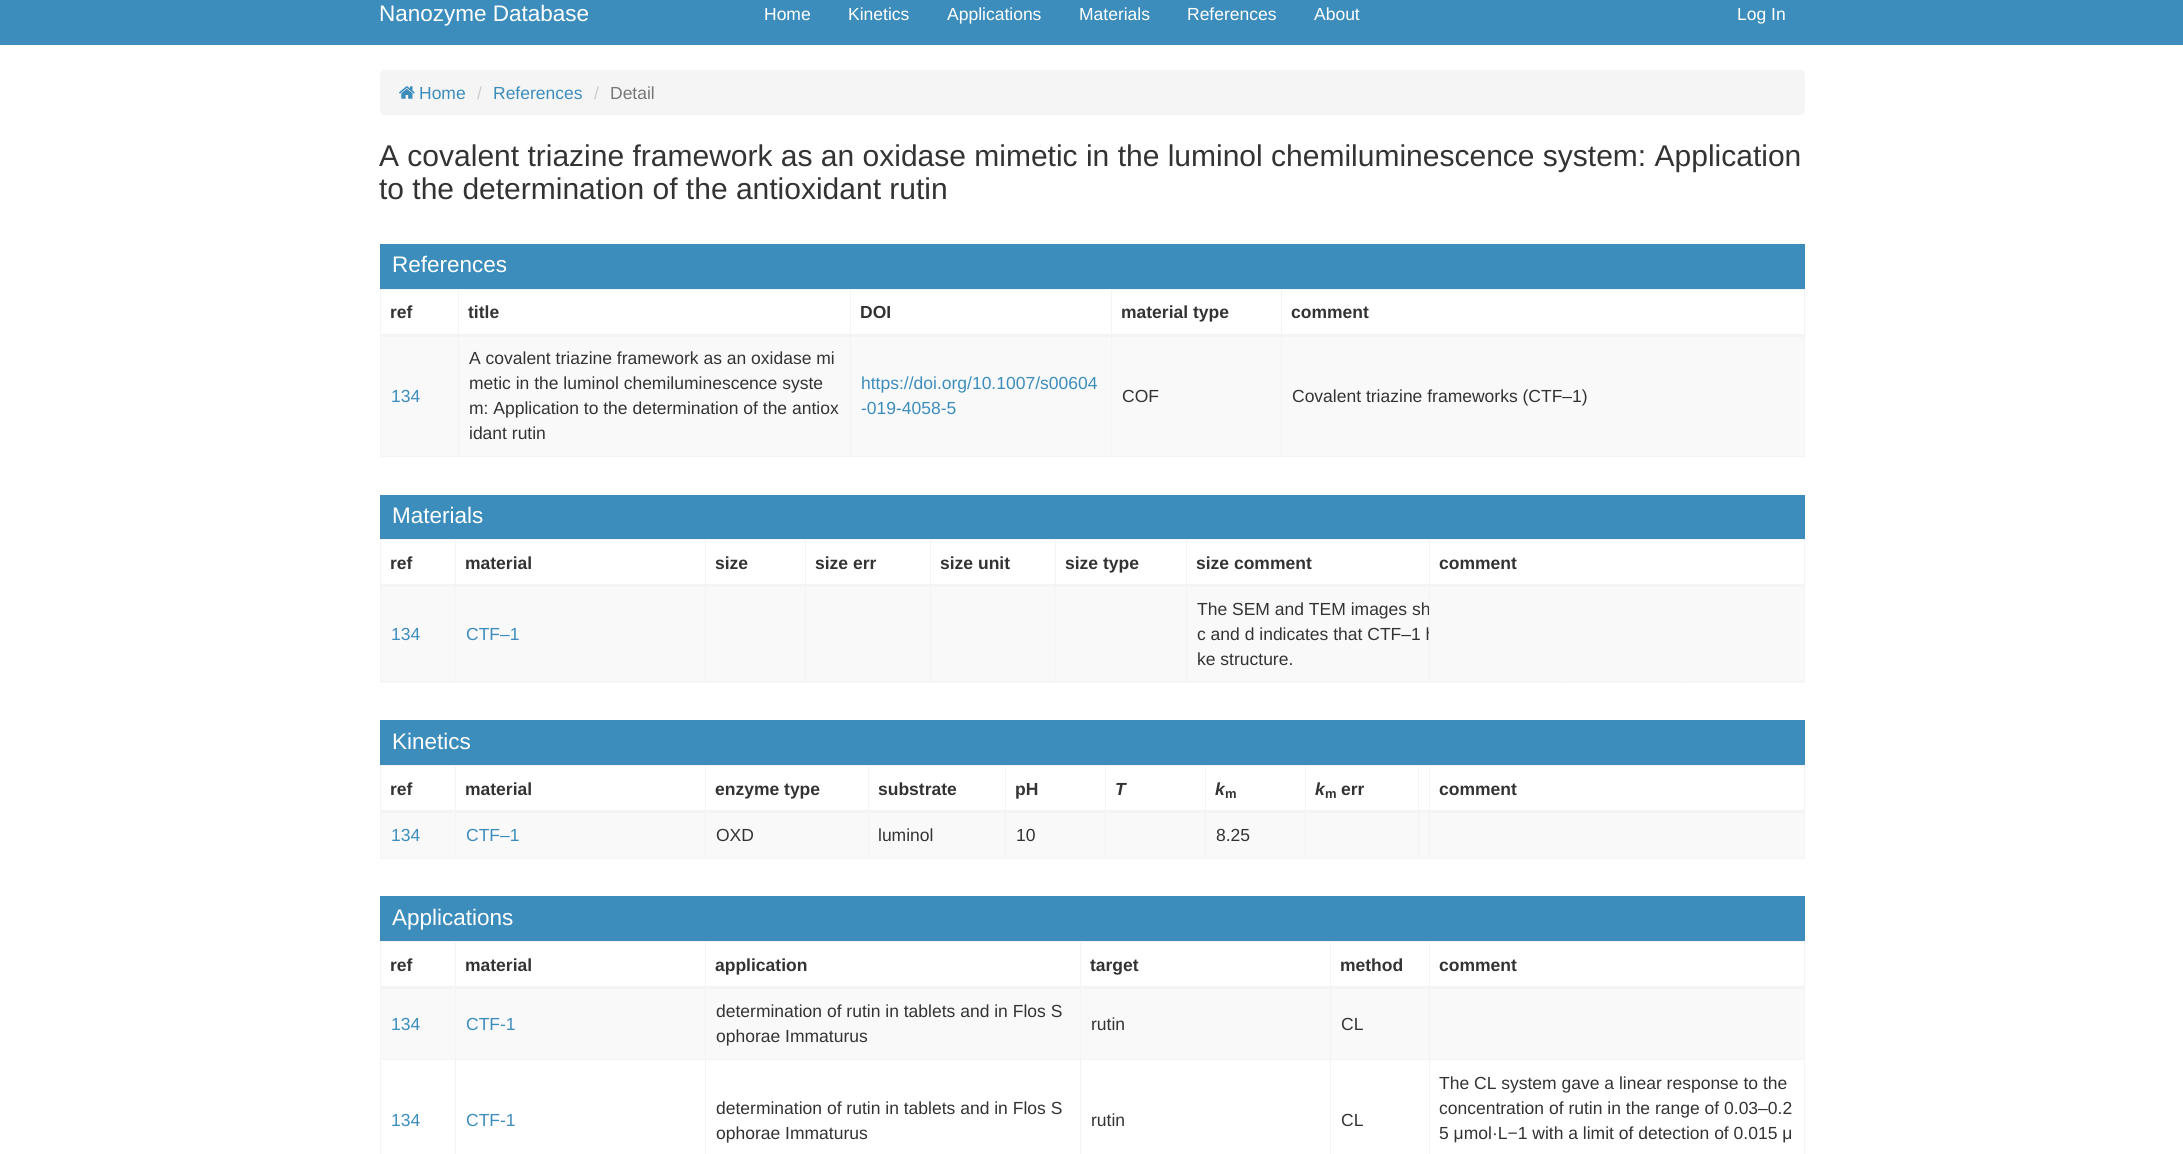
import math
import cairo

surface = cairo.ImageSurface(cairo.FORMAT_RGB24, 2183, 1154)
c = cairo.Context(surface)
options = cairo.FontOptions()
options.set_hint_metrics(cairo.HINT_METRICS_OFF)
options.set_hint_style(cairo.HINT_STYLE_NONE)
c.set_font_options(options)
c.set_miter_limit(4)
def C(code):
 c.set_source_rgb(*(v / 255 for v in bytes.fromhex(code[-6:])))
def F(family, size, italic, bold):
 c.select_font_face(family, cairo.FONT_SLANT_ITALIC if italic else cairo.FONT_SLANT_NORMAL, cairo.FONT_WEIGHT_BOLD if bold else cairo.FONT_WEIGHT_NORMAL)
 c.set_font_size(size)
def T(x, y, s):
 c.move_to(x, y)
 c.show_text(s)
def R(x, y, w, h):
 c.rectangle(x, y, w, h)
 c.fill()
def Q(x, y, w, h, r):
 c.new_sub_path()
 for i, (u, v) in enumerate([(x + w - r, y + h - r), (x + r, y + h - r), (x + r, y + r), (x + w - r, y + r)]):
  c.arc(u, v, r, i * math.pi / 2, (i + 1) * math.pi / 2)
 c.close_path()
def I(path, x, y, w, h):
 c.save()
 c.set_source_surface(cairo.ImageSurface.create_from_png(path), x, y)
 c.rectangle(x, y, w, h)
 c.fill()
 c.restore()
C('ffffff')
c.paint()
C('3c8dbc')
R(0,0,2183,45)
F('Liberation Sans',22.5,0,0)
C('ffffff')
T(379,21,'Nanozyme Database')
F('Liberation Sans',17.5,0,0)
T(764,20,'Home')
T(848,20,'Kinetics')
T(947,20,'Applications')
T(1079,20,'Materials')
T(1187,20,'References')
T(1314,20,'About')
T(1737,20,'Log In')
C('f5f5f5')
Q(380,70,1425,45,5)
c.fill()
I('1.png',399,86,16,13)
C('3c8dbc')
T(419,99,'Home')
C('cccccc')
T(477,99,'/')
C('3c8dbc')
T(493,99,'References')
C('cccccc')
T(594,99,'/')
C('777777')
T(610,99,'Detail')
F('Liberation Sans',30,0,0)
C('333333')
T(379,166,'A covalent triazine framework as an oxidase mimetic in the luminol chemiluminescence system: Application')
T(379,199,'to the determination of the antioxidant rutin')
C('3c8dbc')
R(380,244,1425,45)
F('Liberation Sans',22.5,0,0)
C('ffffff')
T(392,272,'References')
C('f4f4f4')
R(380,289,1425,1)
R(1804,289,1,169)
R(380,456,1425,1)
R(380,289,1,169)
F('Liberation Sans',17.5,0,1)
C('333333')
T(390,318,'ref')
T(468,318,'title')
T(860,318,'DOI')
T(1121,318,'material type')
C('f9f9f9')
R(381,337,1423,119)
C('f4f4f4')
R(458,289,1,169)
R(850,289,1,169)
R(1111,289,1,169)
R(1281,289,1,169)
R(380,334,1425,3)
C('333333')
T(1291,318,'comment')
F('Liberation Sans',17.5,0,0)
C('3c8dbc')
T(391,402,'134')
C('333333')
T(469,364,'A covalent triazine framework as an oxidase mi')
T(469,389,'metic in the luminol chemiluminescence syste')
T(469,414,'m: Application to the determination of the antiox')
T(469,439,'idant rutin')
C('3c8dbc')
T(861,389,'https://doi.org/10.1007/s00604')
T(861,414,'-019-4058-5')
C('333333')
T(1122,402,'COF')
T(1292,402,'Covalent triazine frameworks (CTF–1)')
C('3c8dbc')
R(380,495,1425,44)
F('Liberation Sans',22.5,0,0)
C('ffffff')
T(392,523,'Materials')
F('Liberation Sans',17.5,0,1)
C('333333')
T(390,569,'ref')
C('f4f4f4')
R(380,539,1425,1)
C('f9f9f9')
R(381,587,1424,96)
C('f4f4f4')
R(380,681,1425,1)
R(805,539,1,144)
R(930,539,1,144)
R(1055,539,1,144)
R(1186,539,1,144)
R(704,584,725,3)
R(705,539,1,142)
R(380,539,1,144)
R(455,539,1,144)
R(380,584,326,3)
C('333333')
T(465,569,'material')
F('Liberation Sans',17.5,0,0)
C('3c8dbc')
T(391,640,'134')
T(466,640,'CTF–1')
F('Liberation Sans',17.5,0,1)
C('333333')
T(715,569,'size')
T(815,569,'size err')
T(940,569,'size unit')
T(1065,569,'size type')
T(1196,569,'size comment')
F('Liberation Sans',17.5,0,0)
T(1197,615,'The SEM and TEM images sh')
T(1197,640,'c and d indicates that CTF–1 h')
T(1197,665,'ke structure.')
C('f4f4f4')
R(705,681,1,2)
R(1561,681,1,2)
R(1686,681,1,2)
R(1804,539,1,142)
C('f9f9f9')
R(1430,630,5,10)
C('f4f4f4')
R(1429,539,1,142)
R(1429,584,376,3)
F('Liberation Sans',17.5,0,1)
C('333333')
T(1439,569,'comment')
C('3c8dbc')
R(380,720,1425,45)
F('Liberation Sans',22.5,0,0)
C('ffffff')
T(392,749,'Kinetics')
C('f4f4f4')
R(380,765,1425,1)
R(380,765,1,93)
F('Liberation Sans',17.5,0,1)
C('333333')
T(390,795,'ref')
C('f9f9f9')
R(381,813,324,45)
C('f4f4f4')
R(455,765,1,93)
R(380,858,1425,1)
C('f9f9f9')
R(706,813,723,45)
C('f4f4f4')
R(868,765,1,94)
R(1005,765,1,94)
R(1105,765,1,94)
R(1205,765,1,94)
R(1305,765,1,94)
R(1418,765,1,94)
R(704,810,725,3)
R(705,765,1,93)
R(380,810,326,3)
C('333333')
T(465,795,'material')
F('Liberation Sans',17.5,0,0)
C('3c8dbc')
T(391,841,'134')
T(466,841,'CTF–1')
F('Liberation Sans',17.5,0,1)
C('333333')
T(715,795,'enzyme type')
T(878,795,'substrate')
T(1015,795,'pH')
F('Liberation Sans',17.5,1,1)
T(1115,795,'T')
T(1215,795,'k')
F('Liberation Sans',13,0,1)
T(1225,798,'m')
F('Liberation Sans',17.5,1,1)
T(1315,795,'k')
F('Liberation Sans',13,0,1)
T(1325,798,'m')
F('Liberation Sans',17.5,0,1)
T(1341,795,'err')
F('Liberation Sans',17.5,0,0)
T(716,841,'OXD')
T(878,841,'luminol')
T(1016,841,'10')
T(1216,841,'8.25')
C('f4f4f4')
R(1804,765,1,93)
C('f9f9f9')
R(1430,813,374,45)
C('f4f4f4')
R(1429,765,1,93)
R(1429,810,376,3)
F('Liberation Sans',17.5,0,1)
C('333333')
T(1439,795,'comment')
C('3c8dbc')
R(380,896,1425,45)
F('Liberation Sans',22.5,0,0)
C('ffffff')
T(392,925,'Applications')
C('f4f4f4')
R(380,941,1425,1)
C('f9f9f9')
R(706,989,723,70)
C('f4f4f4')
R(1330,1059,99,1)
R(1330,1059,1,95)
R(1080,1059,251,1)
R(1080,1059,1,95)
R(705,1059,376,1)
R(1080,941,1,119)
R(1330,941,1,119)
R(704,986,725,3)
C('ffffff')
R(704,986,1,3)
C('f4f4f4')
R(380,941,1,213)
F('Liberation Sans',17.5,0,1)
C('333333')
T(390,971,'ref')
C('f9f9f9')
R(381,989,324,70)
C('f4f4f4')
R(705,1059,1,95)
R(455,1059,251,1)
R(455,1059,1,95)
R(380,1059,76,1)
R(455,941,1,119)
R(705,941,1,119)
R(380,986,326,3)
C('333333')
T(465,971,'material')
F('Liberation Sans',17.5,0,0)
C('3c8dbc')
T(391,1030,'134')
T(466,1030,'CTF-1')
T(391,1126,'134')
T(466,1126,'CTF-1')
F('Liberation Sans',17.5,0,1)
C('333333')
T(715,971,'application')
T(1090,971,'target')
T(1340,971,'method')
F('Liberation Sans',17.5,0,0)
T(716,1017,'determination of rutin in tablets and in Flos S')
T(716,1042,'ophorae Immaturus')
T(1091,1030,'rutin')
T(1341,1030,'CL')
T(716,1114,'determination of rutin in tablets and in Flos S')
T(716,1139,'ophorae Immaturus')
T(1091,1126,'rutin')
T(1341,1126,'CL')
C('f4f4f4')
R(1804,941,1,213)
R(1429,1059,376,1)
R(1429,941,1,213)
R(1429,986,376,3)
F('Liberation Sans',17.5,0,1)
C('333333')
T(1439,971,'comment')
C('f9f9f9')
R(1430,989,374,70)
F('Liberation Sans',17.5,0,0)
C('333333')
T(1439,1089,'The CL system gave a linear response to the')
T(1439,1114,'concentration of rutin in the range of 0.03–0.2')
T(1439,1139,'5 μmol·L−1 with a limit of detection of 0.015 μ')
surface.write_to_png('o.png')
